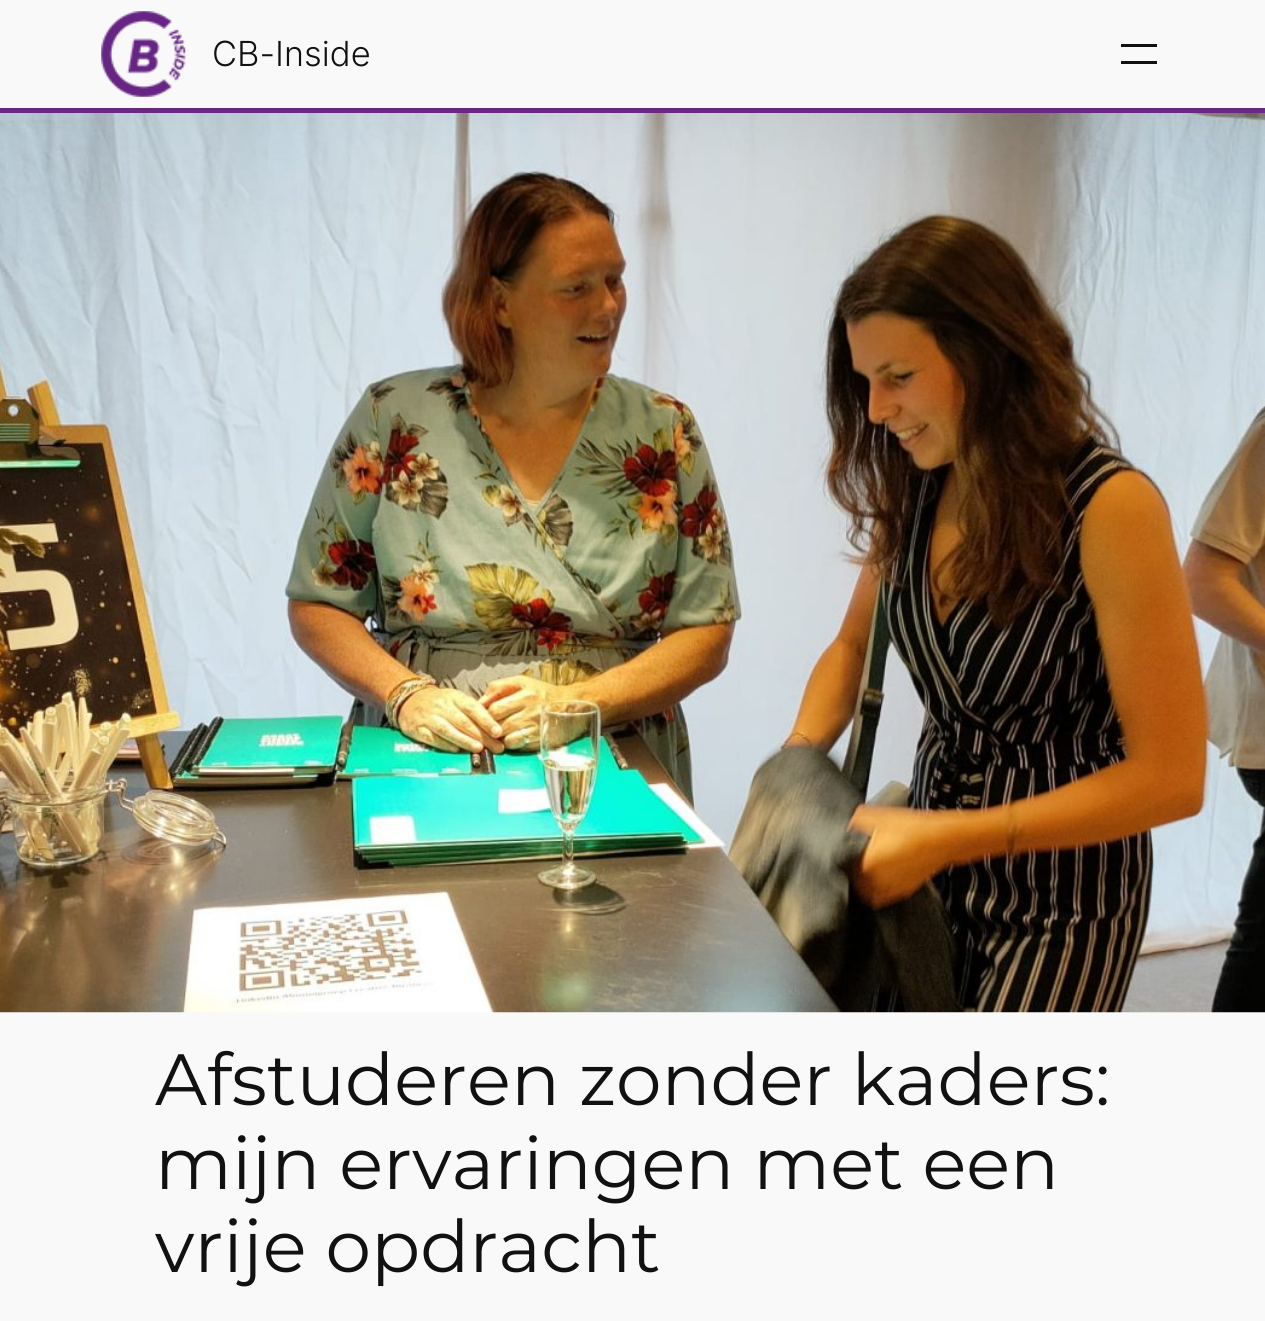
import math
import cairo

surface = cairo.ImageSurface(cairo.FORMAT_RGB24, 1265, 1321)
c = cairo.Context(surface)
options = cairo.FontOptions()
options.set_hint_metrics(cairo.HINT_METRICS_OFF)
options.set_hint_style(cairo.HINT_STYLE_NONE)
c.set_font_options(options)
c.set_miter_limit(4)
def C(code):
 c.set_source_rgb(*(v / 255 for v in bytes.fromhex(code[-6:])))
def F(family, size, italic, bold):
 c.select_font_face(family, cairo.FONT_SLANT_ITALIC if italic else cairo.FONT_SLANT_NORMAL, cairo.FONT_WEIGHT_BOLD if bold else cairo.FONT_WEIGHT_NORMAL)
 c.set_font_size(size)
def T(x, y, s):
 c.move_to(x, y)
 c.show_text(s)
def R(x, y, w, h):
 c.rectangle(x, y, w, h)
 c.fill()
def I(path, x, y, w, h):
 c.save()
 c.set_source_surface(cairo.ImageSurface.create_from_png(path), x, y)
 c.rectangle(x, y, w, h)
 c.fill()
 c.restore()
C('f9f9f9')
c.paint()
C('682882')
R(0,108,1265,5)
I('1.png',101,11,85,86)
F('Inter Light',34.5,0,0)
C('111111')
T(212,66,'CB-Inside')
R(1121,44,36,3)
R(1121,61,36,3)
I('2.png',0,113,1265,900)
F('Montserrat',72.5,0,0)
T(155,1105,'Afstuderen zonder kaders:')
T(155,1189,'mijn ervaringen met een')
T(155,1272,'vrije opdracht')
surface.write_to_png('o.png')
